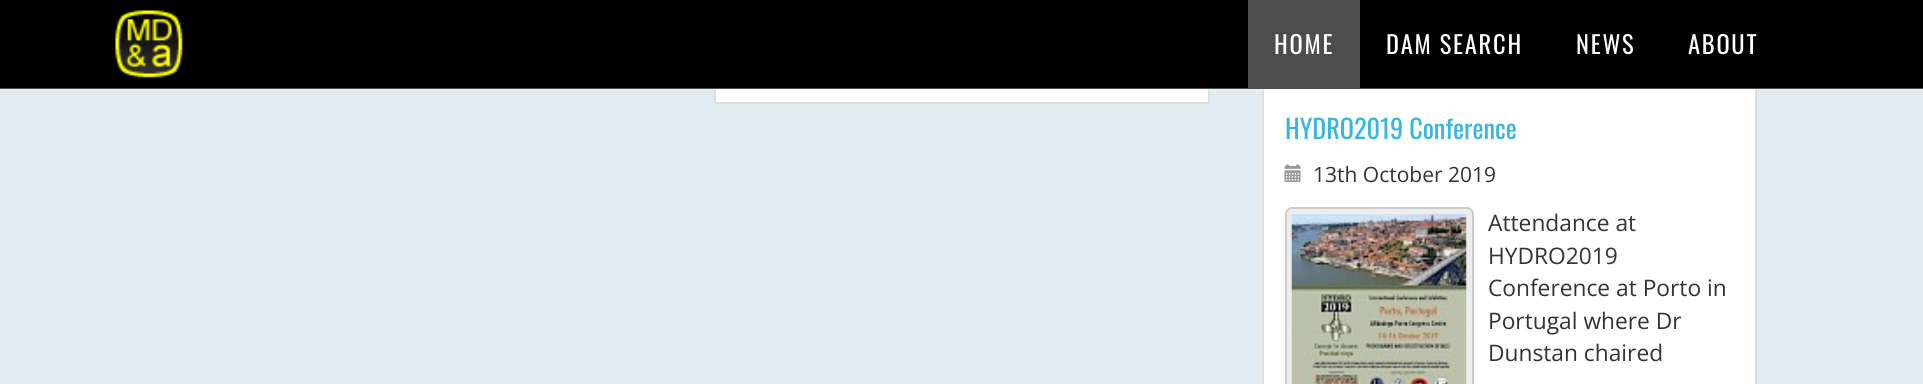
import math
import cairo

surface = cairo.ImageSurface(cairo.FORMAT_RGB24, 1923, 384)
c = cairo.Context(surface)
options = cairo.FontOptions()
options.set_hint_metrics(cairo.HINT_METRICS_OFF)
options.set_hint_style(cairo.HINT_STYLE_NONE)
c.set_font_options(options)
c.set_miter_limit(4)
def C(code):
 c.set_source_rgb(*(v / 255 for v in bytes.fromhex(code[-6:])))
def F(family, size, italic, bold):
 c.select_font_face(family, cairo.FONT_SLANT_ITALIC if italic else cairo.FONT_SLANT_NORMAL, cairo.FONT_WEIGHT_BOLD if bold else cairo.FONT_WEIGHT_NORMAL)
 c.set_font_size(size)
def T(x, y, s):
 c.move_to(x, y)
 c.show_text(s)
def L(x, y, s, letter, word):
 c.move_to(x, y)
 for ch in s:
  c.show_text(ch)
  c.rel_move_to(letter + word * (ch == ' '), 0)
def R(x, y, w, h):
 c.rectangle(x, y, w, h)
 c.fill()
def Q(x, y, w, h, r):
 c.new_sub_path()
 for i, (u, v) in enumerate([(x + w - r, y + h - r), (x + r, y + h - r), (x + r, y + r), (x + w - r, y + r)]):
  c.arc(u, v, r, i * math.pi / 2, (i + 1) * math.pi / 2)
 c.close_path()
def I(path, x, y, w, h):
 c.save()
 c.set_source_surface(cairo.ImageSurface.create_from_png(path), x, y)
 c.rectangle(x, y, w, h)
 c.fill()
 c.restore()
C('e1ecf2')
c.paint()
C('eaf2f6')
R(0,89,1923,1)
C('000000')
R(0,0,1923,88)
C('4d4d4d')
R(0,88,1923,1)
I('1.png',115,10,68,68)
R(1248,0,112,88)
F('Oswald',24.5,0,0)
C('ffffff')
L(1274,54,'HOME',1.75,0)
L(1386,54,'DAM SEARCH',1.75,0)
L(1576,54,'NEWS',1.75,0)
L(1688,54,'ABOUT',1.75,0)
R(716,90,492,12)
R(714,89,495,1)
C('dddddd')
R(1208,90,2,13)
C('e7e7e7')
R(1208,89,2,1)
C('dddddd')
R(714,102,495,2)
R(714,90,2,13)
C('e7e7e7')
R(714,89,2,1)
C('ffffff')
R(1264,90,491,294)
R(1262,89,495,1)
C('dddddd')
R(1755,90,2,294)
C('e7e7e7')
R(1755,89,2,1)
C('dddddd')
R(1262,90,2,294)
C('e7e7e7')
R(1262,89,2,1)
F('Oswald',26.25,0,0)
C('38b6e0')
T(1285,139,'HYDRO2019 Conference')
I('2.png',1284,164,17,18)
F('Open Sans',21,0,0)
C('333333')
T(1313,182,'13th October 2019')
C('ededed')
Q(1286,208,187,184,6)
c.fill_preserve()
C('cccccc')
c.stroke()
I('3.png',1291,214,176,170)
F('Open Sans',22.75,0,0)
C('333333')
T(1488,231,'Attendance at')
T(1488,264,'HYDRO2019')
T(1488,296,'Conference at Porto in')
T(1488,329,'Portugal where Dr')
T(1488,361,'Dunstan chaired')
surface.write_to_png('o.png')
